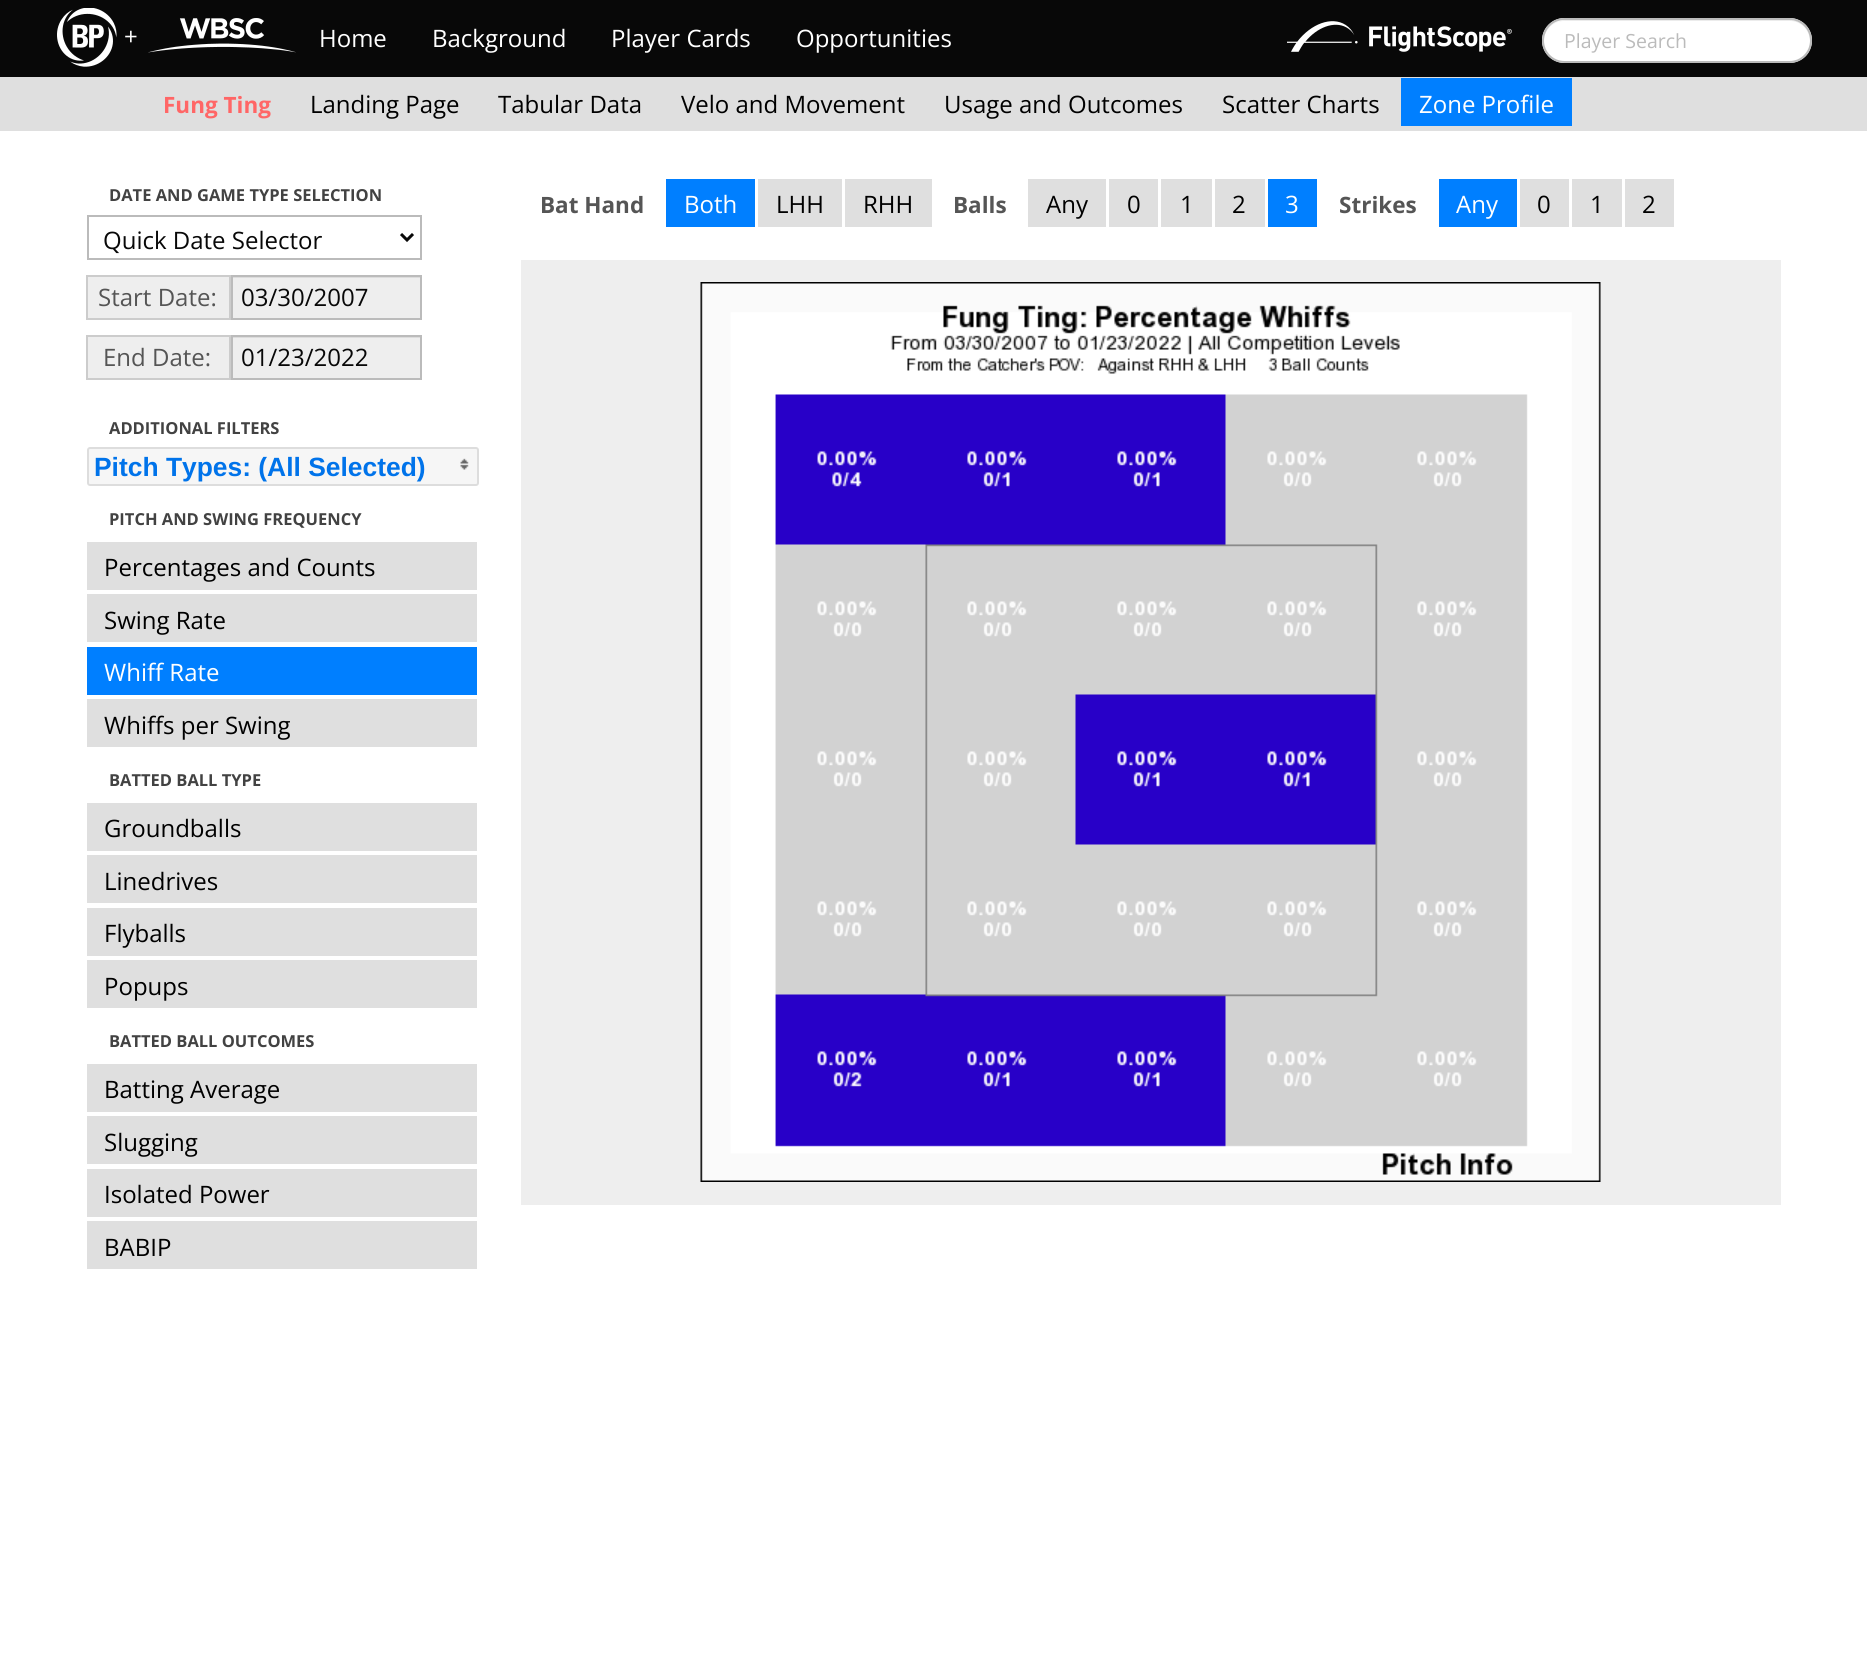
import math
import cairo

surface = cairo.ImageSurface(cairo.FORMAT_RGB24, 1867, 1672)
c = cairo.Context(surface)
options = cairo.FontOptions()
options.set_hint_metrics(cairo.HINT_METRICS_OFF)
options.set_hint_style(cairo.HINT_STYLE_NONE)
c.set_font_options(options)
c.set_miter_limit(4)
def C(code):
 c.set_source_rgb(*(v / 255 for v in bytes.fromhex(code[-6:])))
def F(family, size, italic, bold):
 c.select_font_face(family, cairo.FONT_SLANT_ITALIC if italic else cairo.FONT_SLANT_NORMAL, cairo.FONT_WEIGHT_BOLD if bold else cairo.FONT_WEIGHT_NORMAL)
 c.set_font_size(size)
def T(x, y, s):
 c.move_to(x, y)
 c.show_text(s)
def R(x, y, w, h):
 c.rectangle(x, y, w, h)
 c.fill()
def Q(x, y, w, h, r):
 c.new_sub_path()
 for i, (u, v) in enumerate([(x + w - r, y + h - r), (x + r, y + h - r), (x + r, y + r), (x + w - r, y + r)]):
  c.arc(u, v, r, i * math.pi / 2, (i + 1) * math.pi / 2)
 c.close_path()
def I(path, x, y, w, h):
 c.save()
 c.set_source_surface(cairo.ImageSurface.create_from_png(path), x, y)
 c.rectangle(x, y, w, h)
 c.fill()
 c.restore()
C('ffffff')
c.paint()
C('080808')
R(0,0,1867,77)
I('1.png',57,8,60,59)
F('Open Sans',24,0,0)
C('ffffff')
T(124,45,'+')
I('2.png',148,18,148,35)
T(319,47,'Home')
T(432,47,'Background')
T(611,47,'Player Cards')
T(796,47,'Opportunities')
I('3.png',1287,21,225,31)
Q(1542,18,270,45,22.5)
c.fill()
C('ececec')
c.new_path()
c.move_to(1564,21)
c.line_to(1790,21)
c.curve_to(1801,21,1810,30,1810,42)
c.curve_to(1810,46,1809,50,1807,54)
c.curve_to(1810,49,1812,43,1811,37)
c.curve_to(1809,27,1800,20,1790,20)
c.line_to(1602,20)
c.curve_to(1587,20,1543,12,1544,41)
c.curve_to(1544,30,1553,21,1564,21)
c.close_path()
c.fill()
Q(1543,19,268,43,21.5)
C('bbbbbb')
c.stroke()
F('Open Sans',19.5,0,0)
T(1564,48,'Player Search')
C('dfdfdf')
R(0,77,1867,54)
F('Open Sans',22.5,0,1)
C('ff6666')
T(163,113,'Fung Ting')
F('Open Sans',24,0,0)
C('000000')
T(310,113,'Landing Page')
T(498,113,'Tabular Data')
T(681,113,'Velo and Movement')
T(944,113,'Usage and Outcomes')
T(1222,113,'Scatter Charts')
C('007fff')
R(1401,78,171,48)
C('ffffff')
T(1419,113,'Zone Profile')
F('Open Sans',16.5,0,1)
C('424242')
T(109,201,'DATE AND GAME TYPE SELECTION')
c.rectangle(88,216,333,43)
C('bbbbbb')
c.stroke()
c.new_path()
c.move_to(401,234)
c.line_to(407,240)
c.line_to(413,234)
C('080808')
c.set_line_width(3)
c.stroke()
F('Open Sans',24,0,0)
T(103,249,'Quick Date Selector')
C('eeeeee')
c.rectangle(87,276,143,43)
c.fill_preserve()
C('cccccc')
c.set_line_width(2)
c.stroke()
C('555555')
T(98,306,'Start Date:')
C('eeeeee')
R(233,278,187,40)
C('dcdcdc')
R(233,277,187,1)
c.rectangle(232,276,189,43)
C('bbbbbb')
c.stroke()
C('080808')
T(241,306,'03/30/2007')
C('eeeeee')
c.rectangle(87,336,143,43)
c.fill_preserve()
C('cccccc')
c.stroke()
C('555555')
T(103,366,'End Date:')
C('eeeeee')
R(233,338,187,40)
C('dcdcdc')
R(233,337,187,1)
c.rectangle(232,336,189,43)
C('bbbbbb')
c.stroke()
C('080808')
T(241,366,'01/23/2022')
F('Open Sans',16.5,0,1)
C('424242')
T(109,434,'ADDITIONAL FILTERS')
C('f6f6f6')
Q(88,448,390,37,2)
c.fill_preserve()
C('dddddd')
c.stroke()
F('Liberation Sans',26.4,0,1)
C('0073ea')
T(94,476,'Pitch Types: (All Selected)')
I('4.png',460,458,9,12)
F('Open Sans',16.5,0,1)
C('424242')
T(109,525,'PITCH AND SWING FREQUENCY')
C('dfdfdf')
R(87,542,390,48)
F('Open Sans',24,0,0)
C('000000')
T(104,576,'Percentages and Counts')
C('dfdfdf')
R(87,594,390,48)
C('000000')
T(104,629,'Swing Rate')
C('007fff')
R(87,647,390,48)
C('ffffff')
T(104,681,'Whiff Rate')
C('dfdfdf')
R(87,699,390,48)
C('000000')
T(104,734,'Whiffs per Swing')
F('Open Sans',16.5,0,1)
C('424242')
T(109,786,'BATTED BALL TYPE')
C('dfdfdf')
R(87,803,390,48)
F('Open Sans',24,0,0)
C('000000')
T(104,837,'Groundballs')
C('dfdfdf')
R(87,855,390,48)
C('000000')
T(104,890,'Linedrives')
C('dfdfdf')
R(87,908,390,48)
C('000000')
T(104,942,'Flyballs')
C('dfdfdf')
R(87,960,390,48)
C('000000')
T(104,995,'Popups')
F('Open Sans',16.5,0,1)
C('424242')
T(109,1047,'BATTED BALL OUTCOMES')
C('dfdfdf')
R(87,1064,390,48)
F('Open Sans',24,0,0)
C('000000')
T(104,1098,'Batting Average')
C('dfdfdf')
R(87,1116,390,48)
C('000000')
T(104,1151,'Slugging')
C('dfdfdf')
R(87,1169,390,48)
C('000000')
T(104,1203,'Isolated Power')
C('dfdfdf')
R(87,1221,390,48)
C('000000')
T(104,1256,'BABIP')
F('Open Sans',22.5,0,1)
C('555555')
T(540,213,'Bat Hand')
C('007fff')
R(666,179,89,48)
F('Open Sans',24,0,0)
C('ffffff')
T(684,213,'Both')
C('dfdfdf')
R(758,179,84,48)
C('000000')
T(776,213,'LHH')
C('dfdfdf')
R(845,179,87,48)
C('000000')
T(863,213,'RHH')
F('Open Sans',22.5,0,1)
C('555555')
T(953,213,'Balls')
C('dfdfdf')
R(1028,179,78,48)
F('Open Sans',24,0,0)
C('000000')
T(1046,213,'Any')
C('dfdfdf')
R(1109,179,49,48)
C('000000')
T(1127,213,'0')
C('dfdfdf')
R(1161,179,51,48)
C('000000')
T(1180,213,'1')
C('dfdfdf')
R(1215,179,50,48)
C('000000')
T(1232,213,'2')
C('007fff')
R(1268,179,49,48)
C('ffffff')
T(1285,213,'3')
F('Open Sans',22.5,0,1)
C('555555')
T(1339,213,'Strikes')
C('007fff')
R(1439,179,78,48)
F('Open Sans',24,0,0)
C('ffffff')
T(1456,213,'Any')
C('dfdfdf')
R(1520,179,49,48)
C('000000')
T(1537,213,'0')
C('dfdfdf')
R(1572,179,50,48)
C('000000')
T(1590,213,'1')
C('dfdfdf')
R(1625,179,49,48)
C('000000')
T(1642,213,'2')
C('eeeeee')
R(521,260,1260,945)
I('5.png',700,282,901,900)
surface.write_to_png('o.png')
